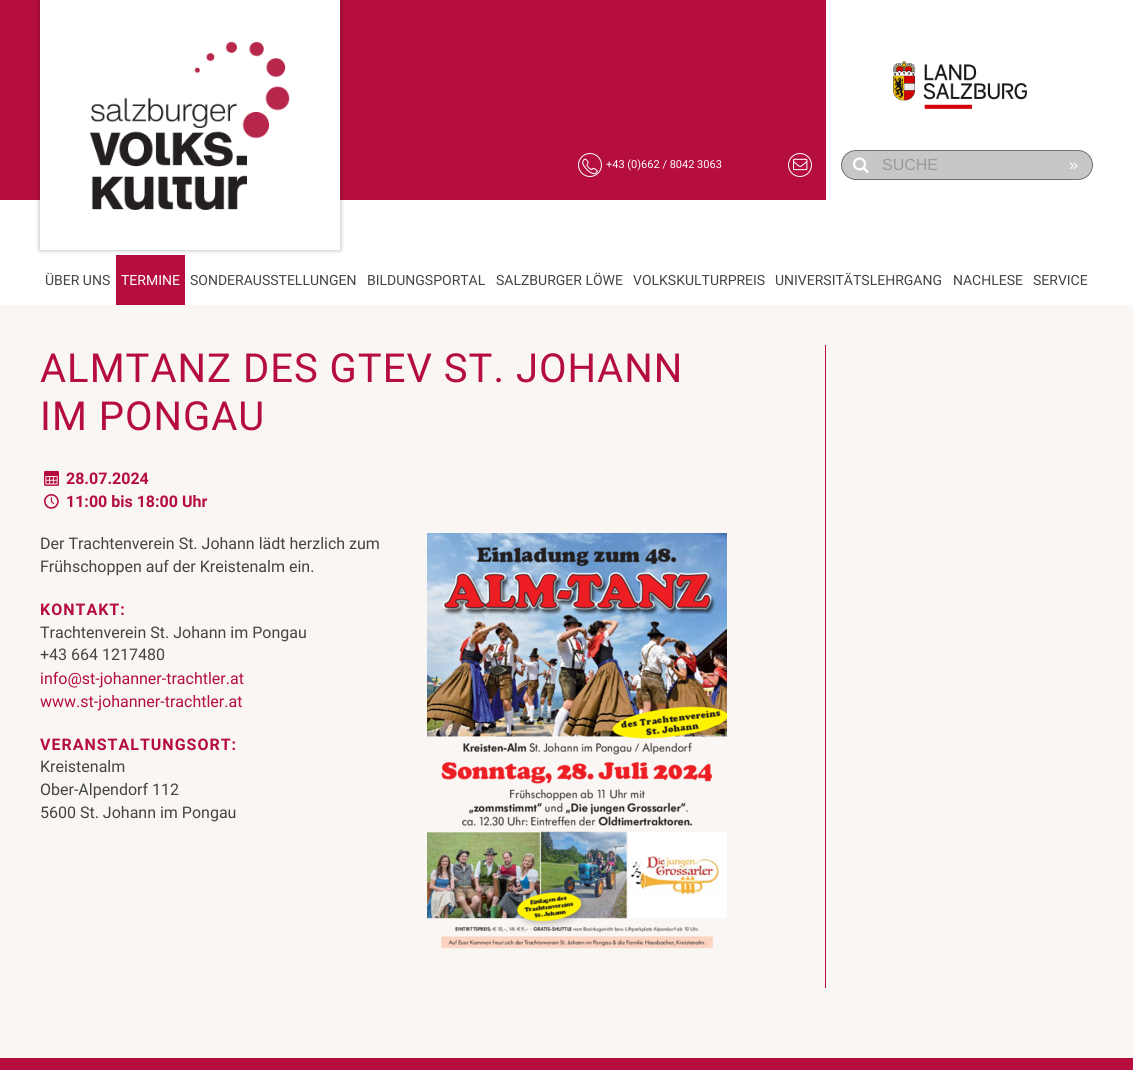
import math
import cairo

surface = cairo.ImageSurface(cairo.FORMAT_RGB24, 1133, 1070)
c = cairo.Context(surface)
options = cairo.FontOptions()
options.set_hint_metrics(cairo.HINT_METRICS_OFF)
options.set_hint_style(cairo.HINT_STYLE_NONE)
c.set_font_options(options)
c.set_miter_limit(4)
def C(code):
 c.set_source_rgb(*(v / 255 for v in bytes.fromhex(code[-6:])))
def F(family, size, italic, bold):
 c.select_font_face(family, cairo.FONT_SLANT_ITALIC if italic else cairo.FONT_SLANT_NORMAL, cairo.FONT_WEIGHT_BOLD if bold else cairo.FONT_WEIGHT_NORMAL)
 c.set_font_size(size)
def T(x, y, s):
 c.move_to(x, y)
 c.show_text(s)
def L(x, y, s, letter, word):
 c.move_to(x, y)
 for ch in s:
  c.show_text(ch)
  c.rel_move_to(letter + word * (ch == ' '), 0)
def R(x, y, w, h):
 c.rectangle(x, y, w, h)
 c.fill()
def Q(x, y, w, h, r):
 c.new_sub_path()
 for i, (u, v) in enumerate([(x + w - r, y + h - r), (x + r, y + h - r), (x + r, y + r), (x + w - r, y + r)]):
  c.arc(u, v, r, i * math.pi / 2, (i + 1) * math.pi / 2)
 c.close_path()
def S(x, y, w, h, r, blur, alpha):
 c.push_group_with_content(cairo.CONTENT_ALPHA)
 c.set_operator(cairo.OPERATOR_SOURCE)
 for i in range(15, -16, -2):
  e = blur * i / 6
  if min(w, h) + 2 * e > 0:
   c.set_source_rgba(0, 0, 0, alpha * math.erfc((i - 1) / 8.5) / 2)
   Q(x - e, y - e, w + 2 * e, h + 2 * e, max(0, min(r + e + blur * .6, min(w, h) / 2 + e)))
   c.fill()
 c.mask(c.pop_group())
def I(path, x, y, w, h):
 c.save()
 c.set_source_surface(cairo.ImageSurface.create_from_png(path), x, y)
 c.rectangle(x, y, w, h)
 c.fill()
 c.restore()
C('f9f6f3')
c.paint()
C('b50d3d')
R(0,0,826,200)
C('ffffff')
R(826,0,307,200)
R(0,200,1133,105)
C('b50d3d')
R(116,255,69,50)
C('000000')
S(40,0,300,250,0,2.5,.33)
C('ffffff')
R(40,0,300,250)
I('1.png',90,41,200,169)
c.arc(590,165,11.5,0,2 * math.pi)
c.set_line_width(1)
c.stroke()
I('2.png',582,158,16,17)
F('Roboto',11,0,0)
T(606,168,'+43 (0)662 / 8042 3063')
c.new_path()
c.arc(800,165,11.5,0,2 * math.pi)
c.stroke()
I('3.png',793,158,15,13)
I('4.png',893,61,134,48)
C('c7c7c8')
Q(841.5,150.5,251,29,14.5)
c.fill_preserve()
C('707070')
c.stroke()
I('5.png',853,157,16,17)
F('Liberation Sans',16,0,0)
C('999999')
T(882,170,'SUCHE')
C('ffffff')
T(1069,170,'»')
F('Roboto',14,0,0)
C('444444')
T(45,285,'ÜBER UNS')
C('ffffff')
T(121,285,'TERMINE')
C('444444')
T(190,285,'SONDERAUSSTELLUNGEN')
T(367,285,'BILDUNGSPORTAL')
T(496,285,'SALZBURGER LÖWE')
T(633,285,'VOLKSKULTURPREIS')
T(775,285,'UNIVERSITÄTSLEHRGANG')
T(953,285,'NACHLESE')
T(1033,285,'SERVICE')
C('b50d3d')
R(825,345,1,643)
F('Roboto',40,0,0)
L(40,382,'ALMTANZ DES GTEV ST. JOHANN',1,0)
L(40,430,'IM PONGAU',1,0)
I('6.png',44,470,15,16)
F('Roboto',16,0,1)
T(66,484,'28.07.2024')
I('7.png',44,494,15,15)
T(66,507,'11:00 bis 18:00 Uhr')
F('Roboto',16,0,0)
C('444444')
T(40,549,'Der Trachtenverein St. Johann lädt herzlich zum')
T(40,572,'Frühschoppen auf der Kreistenalm ein.')
I('8.png',427,533,300,416)
F('Roboto',16,0,1)
C('b50d3d')
L(40,615,'KONTAKT:',1,0)
F('Roboto',16,0,0)
C('444444')
T(40,638,'Trachtenverein St. Johann im Pongau')
T(40,660,'+43 664 1217480')
C('b50d3d')
T(40,684,'info@st-johanner-trachtler.at')
T(40,707,'www.st-johanner-trachtler.at')
F('Roboto',16,0,1)
L(40,750,'VERANSTALTUNGSORT:',1,0)
F('Roboto',16,0,0)
C('444444')
T(40,772,'Kreistenalm')
T(40,795,'Ober-Alpendorf 112')
T(40,818,'5600 St. Johann im Pongau')
C('b50d3d')
R(0,1058,1133,12)
surface.write_to_png('o.png')
